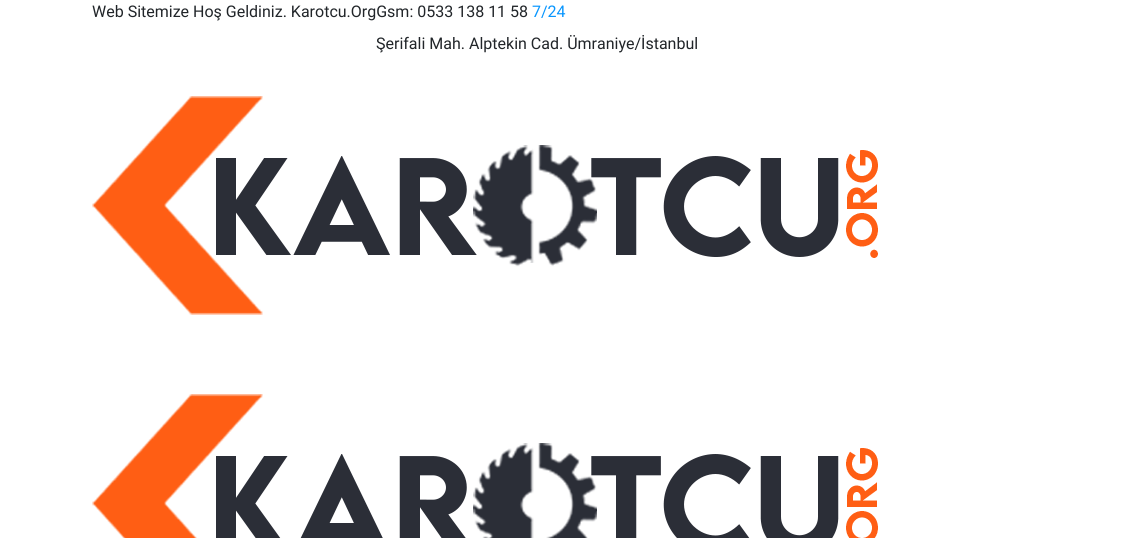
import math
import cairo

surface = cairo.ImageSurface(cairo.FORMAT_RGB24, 1144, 538)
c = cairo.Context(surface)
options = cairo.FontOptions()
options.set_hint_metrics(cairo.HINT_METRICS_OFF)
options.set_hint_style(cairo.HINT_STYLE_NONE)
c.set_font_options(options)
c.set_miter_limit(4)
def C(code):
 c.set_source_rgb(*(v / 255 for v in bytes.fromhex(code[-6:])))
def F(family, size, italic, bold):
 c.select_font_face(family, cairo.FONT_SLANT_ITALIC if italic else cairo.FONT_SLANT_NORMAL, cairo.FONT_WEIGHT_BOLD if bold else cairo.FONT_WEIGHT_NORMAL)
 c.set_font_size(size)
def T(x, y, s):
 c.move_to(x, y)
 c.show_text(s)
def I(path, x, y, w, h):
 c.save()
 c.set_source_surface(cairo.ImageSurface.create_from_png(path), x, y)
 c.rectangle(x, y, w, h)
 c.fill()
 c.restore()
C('ffffff')
c.paint()
F('Roboto',16,0,0)
C('212529')
T(92,17,'Web Sitemize Hoş Geldiniz. Karotcu.OrgGsm: 0533 138 11 58')
C('0795fe')
T(532,17,'7/24')
C('212529')
T(376,49,'Şerifali Mah. Alptekin Cad. Ümraniye/İstanbul')
I('1.png',92,96,786,219)
I('2.png',92,394,786,144)
surface.write_to_png('o.png')
